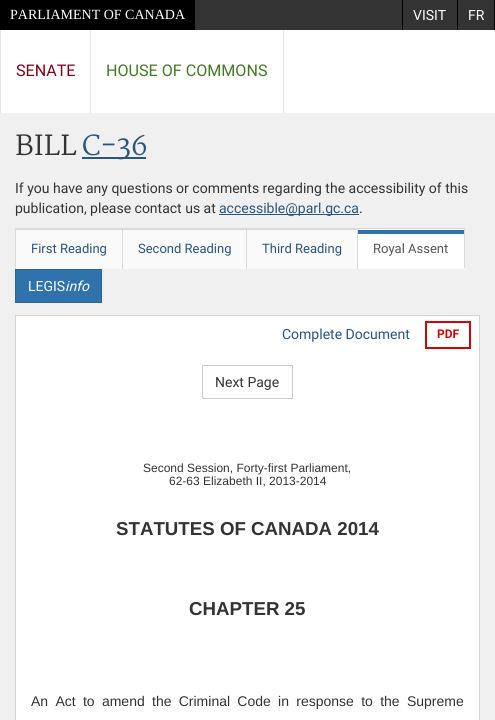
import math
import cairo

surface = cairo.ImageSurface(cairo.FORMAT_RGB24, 495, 720)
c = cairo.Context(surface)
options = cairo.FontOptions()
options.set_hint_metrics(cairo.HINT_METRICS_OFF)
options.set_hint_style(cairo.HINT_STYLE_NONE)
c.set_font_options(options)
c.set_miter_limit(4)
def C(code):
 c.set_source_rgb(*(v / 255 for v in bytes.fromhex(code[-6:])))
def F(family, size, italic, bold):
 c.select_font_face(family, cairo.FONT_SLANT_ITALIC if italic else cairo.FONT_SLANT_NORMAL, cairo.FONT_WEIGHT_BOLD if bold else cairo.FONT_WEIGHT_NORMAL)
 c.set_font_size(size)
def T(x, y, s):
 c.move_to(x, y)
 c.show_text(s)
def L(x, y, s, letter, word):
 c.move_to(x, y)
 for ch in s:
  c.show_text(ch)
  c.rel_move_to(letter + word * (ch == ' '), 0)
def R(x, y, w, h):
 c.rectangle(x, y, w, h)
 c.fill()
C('f0f0f0')
c.paint()
C('333333')
R(195,0,299,30)
C('000000')
R(0,0,195,30)
F('Liberation Serif',14,0,0)
C('ffffff')
T(10,19,'PARLIAMENT OF CANADA')
C('000000')
R(402,0,1,30)
F('Roboto',14,0,0)
C('ffffff')
T(413,20,'VISIT')
C('000000')
R(494,0,1,30)
R(457,0,1,30)
C('ffffff')
T(468,20,'FR')
R(1,30,494,83)
C('e5e5e5')
R(0,30,1,83)
F('Roboto',16.1,0,0)
C('7f0116')
T(16,76,'SENATE')
C('e5e5e5')
R(283,30,1,83)
R(90,30,1,83)
C('427a26')
T(106,76,'HOUSE OF COMMONS')
F('Martel',27,0,0)
C('333333')
T(15,155,'BILL')
C('29557b')
R(82,157,64,2)
T(82,155,'C-36')
F('Roboto',14,0,0)
C('333333')
T(15,193,'If you have any questions or comments regarding the accessibility of this')
T(15,213,'publication, please contact us at')
C('29557b')
R(219,214,140,1)
T(219,213,'accessible@parl.gc.ca')
C('333333')
T(359,213,'.')
C('fafafa')
R(16,230,106,39)
C('dadada')
R(15,228,450,1)
R(122,228,1,41)
R(15,228,1,41)
R(16,229,106,1)
F('Roboto',13,0,0)
C('29557b')
T(31,253,'First Reading')
C('fafafa')
R(123,230,123,39)
C('dadada')
R(246,228,1,41)
R(123,229,123,1)
C('29557b')
T(138,253,'Second Reading')
C('fafafa')
R(247,230,110,39)
C('dadada')
R(357,228,1,41)
R(247,229,110,1)
C('29557b')
T(262,253,'Third Reading')
C('ffffff')
R(358,229,106,39)
C('dadada')
R(464,228,1,41)
C('ffffff')
R(358,268,107,1)
C('3072ab')
R(358,230,106,4)
C('555555')
T(373,253,'Royal Assent')
C('3072ab')
c.rectangle(15.5,269.5,86,33)
c.fill_preserve()
C('2a6597')
c.set_line_width(1)
c.stroke()
F('Roboto',14,0,0)
C('ffffff')
T(28,291,'LEGIS')
F('Roboto',14,1,0)
T(65,291,'info')
c.rectangle(15.5,315.5,464,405)
c.fill_preserve()
C('d3d3d3')
c.stroke()
F('Roboto',14,0,0)
C('29557b')
T(282,339,'Complete Document')
c.rectangle(426,322,44,26)
C('cc0607')
c.set_line_width(2)
c.stroke()
F('Roboto',12,0,1)
T(437,338,'PDF')
c.rectangle(202.5,365.5,90,33)
C('cccccc')
c.set_line_width(1)
c.stroke()
F('Roboto',14,0,0)
C('333333')
T(215,387,'Next Page')
F('Liberation Sans',12,0,0)
T(143,472,'Second Session, Forty-first Parliament,')
T(169,485,'62-63 Elizabeth II, 2013-2014')
F('Liberation Sans',18.7,0,1)
T(116,535,'STATUTES OF CANADA 2014')
T(189,615,'CHAPTER 25')
F('Liberation Sans',14,0,0)
L(31,706,'An Act to amend the Criminal Code in response to the Supreme',0,3.4)
surface.write_to_png('o.png')
